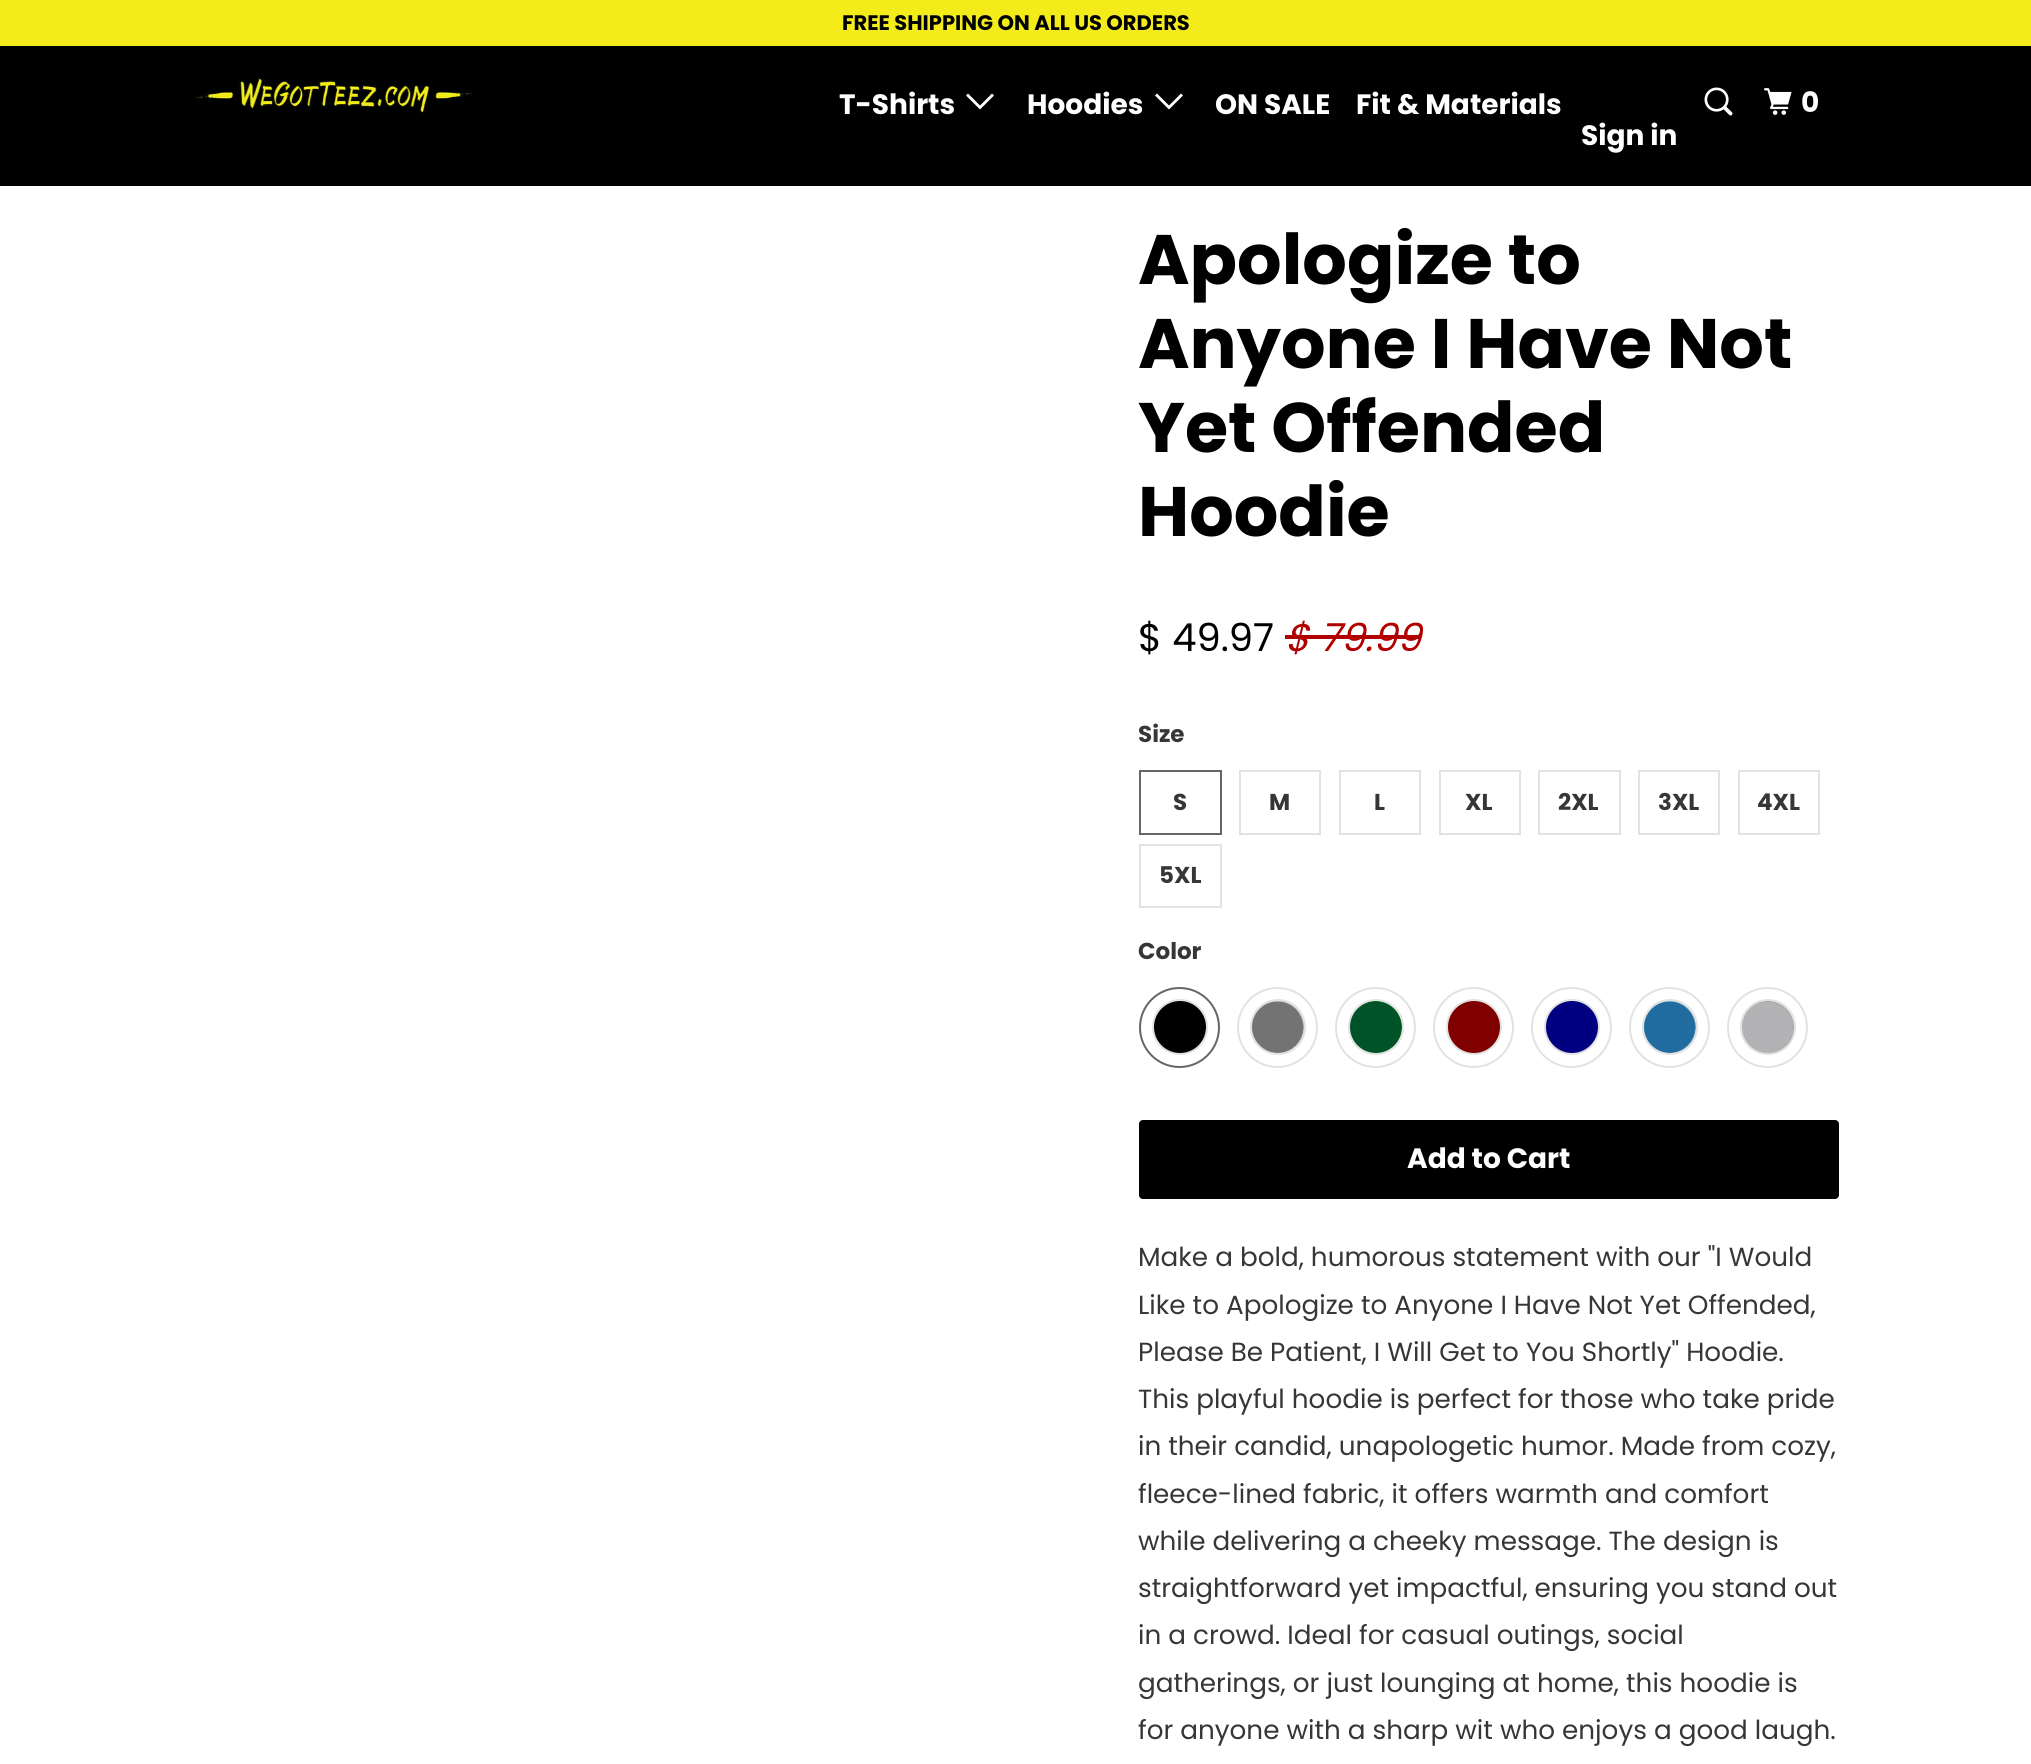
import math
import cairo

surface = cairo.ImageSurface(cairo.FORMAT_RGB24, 2031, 1764)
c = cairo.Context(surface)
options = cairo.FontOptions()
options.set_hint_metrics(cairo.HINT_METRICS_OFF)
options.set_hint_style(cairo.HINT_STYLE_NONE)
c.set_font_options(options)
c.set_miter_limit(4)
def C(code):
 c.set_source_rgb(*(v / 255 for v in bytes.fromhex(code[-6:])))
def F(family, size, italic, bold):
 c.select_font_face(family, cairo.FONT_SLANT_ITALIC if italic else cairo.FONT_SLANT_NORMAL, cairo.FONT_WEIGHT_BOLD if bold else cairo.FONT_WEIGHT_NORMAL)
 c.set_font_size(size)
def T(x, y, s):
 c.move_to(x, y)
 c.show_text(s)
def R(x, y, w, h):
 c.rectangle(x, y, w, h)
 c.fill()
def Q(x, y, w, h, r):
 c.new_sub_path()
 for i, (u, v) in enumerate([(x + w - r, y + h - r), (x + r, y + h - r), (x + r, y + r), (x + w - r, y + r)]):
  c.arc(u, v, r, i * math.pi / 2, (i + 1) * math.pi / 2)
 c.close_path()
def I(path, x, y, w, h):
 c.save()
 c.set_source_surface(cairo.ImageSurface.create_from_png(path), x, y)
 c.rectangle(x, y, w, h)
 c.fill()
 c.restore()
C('ffffff')
c.paint()
C('f3ec1a')
R(0,0,2031,46)
F('Poppins',21,0,1)
C('000000')
T(842,30,'FREE SHIPPING ON ALL US ORDERS')
R(0,46,2031,140)
I('1.png',195,77,279,37)
F('Poppins',28,0,1)
C('ffffff')
T(839,114,'T-Shirts')
c.new_path()
c.move_to(973,102.5)
c.line_to(966,95.5)
c.line_to(968,93.5)
c.line_to(980,105.5)
c.line_to(992,93.5)
c.line_to(994,95.5)
c.line_to(980,109.5)
c.close_path()
c.fill()
T(1027,114,'Hoodies')
c.new_path()
c.move_to(1162,102.5)
c.line_to(1155,95.5)
c.line_to(1157,93.5)
c.line_to(1169,105.5)
c.line_to(1181,93.5)
c.line_to(1183,95.5)
c.line_to(1169,109.5)
c.close_path()
c.fill()
T(1215,114,'ON SALE')
T(1356,114,'Fit & Materials')
I('2.png',1704,87,29,29)
I('3.png',1764,88,28,27)
T(1801,112,'0')
T(1581,145,'Sign in')
F('Poppins',70,0,1)
C('000000')
T(1138,284,'Apologize to')
T(1138,368,'Anyone I Have Not')
T(1138,452,'Yet Offended')
T(1138,536,'Hoodie')
F('Poppins',38.5,0,0)
T(1138,651,'$ 49.97')
F('Poppins',38.5,1,0)
C('b10000')
T(1285,651,'$ 79.99')
R(1285,635,136,4)
F('Poppins',23,0,1)
C('363636')
T(1138,742,'Size')
c.rectangle(1140,771,81,63)
C('666666')
c.stroke()
C('363636')
T(1173,810,'S')
c.rectangle(1240,771,80,63)
C('e2e2e2')
c.stroke()
C('363636')
T(1269,810,'M')
c.rectangle(1340,771,80,63)
C('e2e2e2')
c.stroke()
C('363636')
T(1374,810,'L')
c.rectangle(1440,771,80,63)
C('e2e2e2')
c.stroke()
C('363636')
T(1465,810,'XL')
c.rectangle(1539,771,81,63)
C('e2e2e2')
c.stroke()
C('363636')
T(1558,810,'2XL')
c.rectangle(1639,771,80,63)
C('e2e2e2')
c.stroke()
C('363636')
T(1658,810,'3XL')
c.rectangle(1739,771,80,63)
C('e2e2e2')
c.stroke()
C('363636')
T(1757,810,'4XL')
c.rectangle(1140,845,81,62)
C('e2e2e2')
c.stroke()
C('363636')
T(1159,883,'5XL')
T(1138,959,'Color')
c.new_path()
c.arc(1179.5,1027.5,39.5,0,2 * math.pi)
C('666666')
c.stroke()
C('000000')
c.arc(1180,1027,27,0,2 * math.pi)
c.fill_preserve()
C('e2e2e2')
c.stroke()
c.arc(1277.5,1027.5,39.5,0,2 * math.pi)
c.stroke()
I('4.png',1250,1001,54,52)
c.arc(1278,1027,27,0,2 * math.pi)
c.stroke()
c.arc(1375.5,1027.5,39.5,0,2 * math.pi)
c.stroke()
C('008000')
c.arc(1375.5,1027.5,26.5,0,2 * math.pi)
c.fill()
I('5.png',1348,1001,54,52)
c.arc(1376,1027,27,0,2 * math.pi)
C('e2e2e2')
c.stroke()
c.arc(1473.5,1027.5,39.5,0,2 * math.pi)
c.stroke()
C('800000')
c.arc(1474,1027,27,0,2 * math.pi)
c.fill_preserve()
C('e2e2e2')
c.stroke()
c.arc(1571.5,1027.5,39.5,0,2 * math.pi)
c.stroke()
C('000080')
c.arc(1572,1027,27,0,2 * math.pi)
c.fill_preserve()
C('e2e2e2')
c.stroke()
c.arc(1669.5,1027.5,39.5,0,2 * math.pi)
c.stroke()
I('6.png',1642,1001,54,52)
c.arc(1670,1027,27,0,2 * math.pi)
c.stroke()
c.arc(1767.5,1027.5,39.5,0,2 * math.pi)
c.stroke()
C('808080')
c.arc(1767.5,1027.5,26.5,0,2 * math.pi)
c.fill()
I('7.png',1740,1001,54,52)
c.arc(1768,1027,27,0,2 * math.pi)
C('e2e2e2')
c.stroke()
C('000000')
Q(1139,1120,700,79,4)
c.fill()
F('Poppins',28,0,1)
C('ffffff')
T(1407,1168,'Add to Cart')
F('Poppins',26.25,0,0)
C('363636')
T(1138,1266,'Make a bold, humorous statement with our "I Would')
T(1138,1314,'Like to Apologize to Anyone I Have Not Yet Offended,')
T(1138,1361,'Please Be Patient, I Will Get to You Shortly" Hoodie.')
T(1138,1408,'This playful hoodie is perfect for those who take pride')
T(1138,1455,'in their candid, unapologetic humor. Made from cozy,')
T(1138,1503,'fleece-lined fabric, it offers warmth and comfort')
T(1138,1550,'while delivering a cheeky message. The design is')
T(1138,1597,'straightforward yet impactful, ensuring you stand out')
T(1138,1644,'in a crowd. Ideal for casual outings, social')
T(1138,1692,'gatherings, or just lounging at home, this hoodie is')
T(1138,1739,'for anyone with a sharp wit who enjoys a good laugh.')
surface.write_to_png('o.png')
